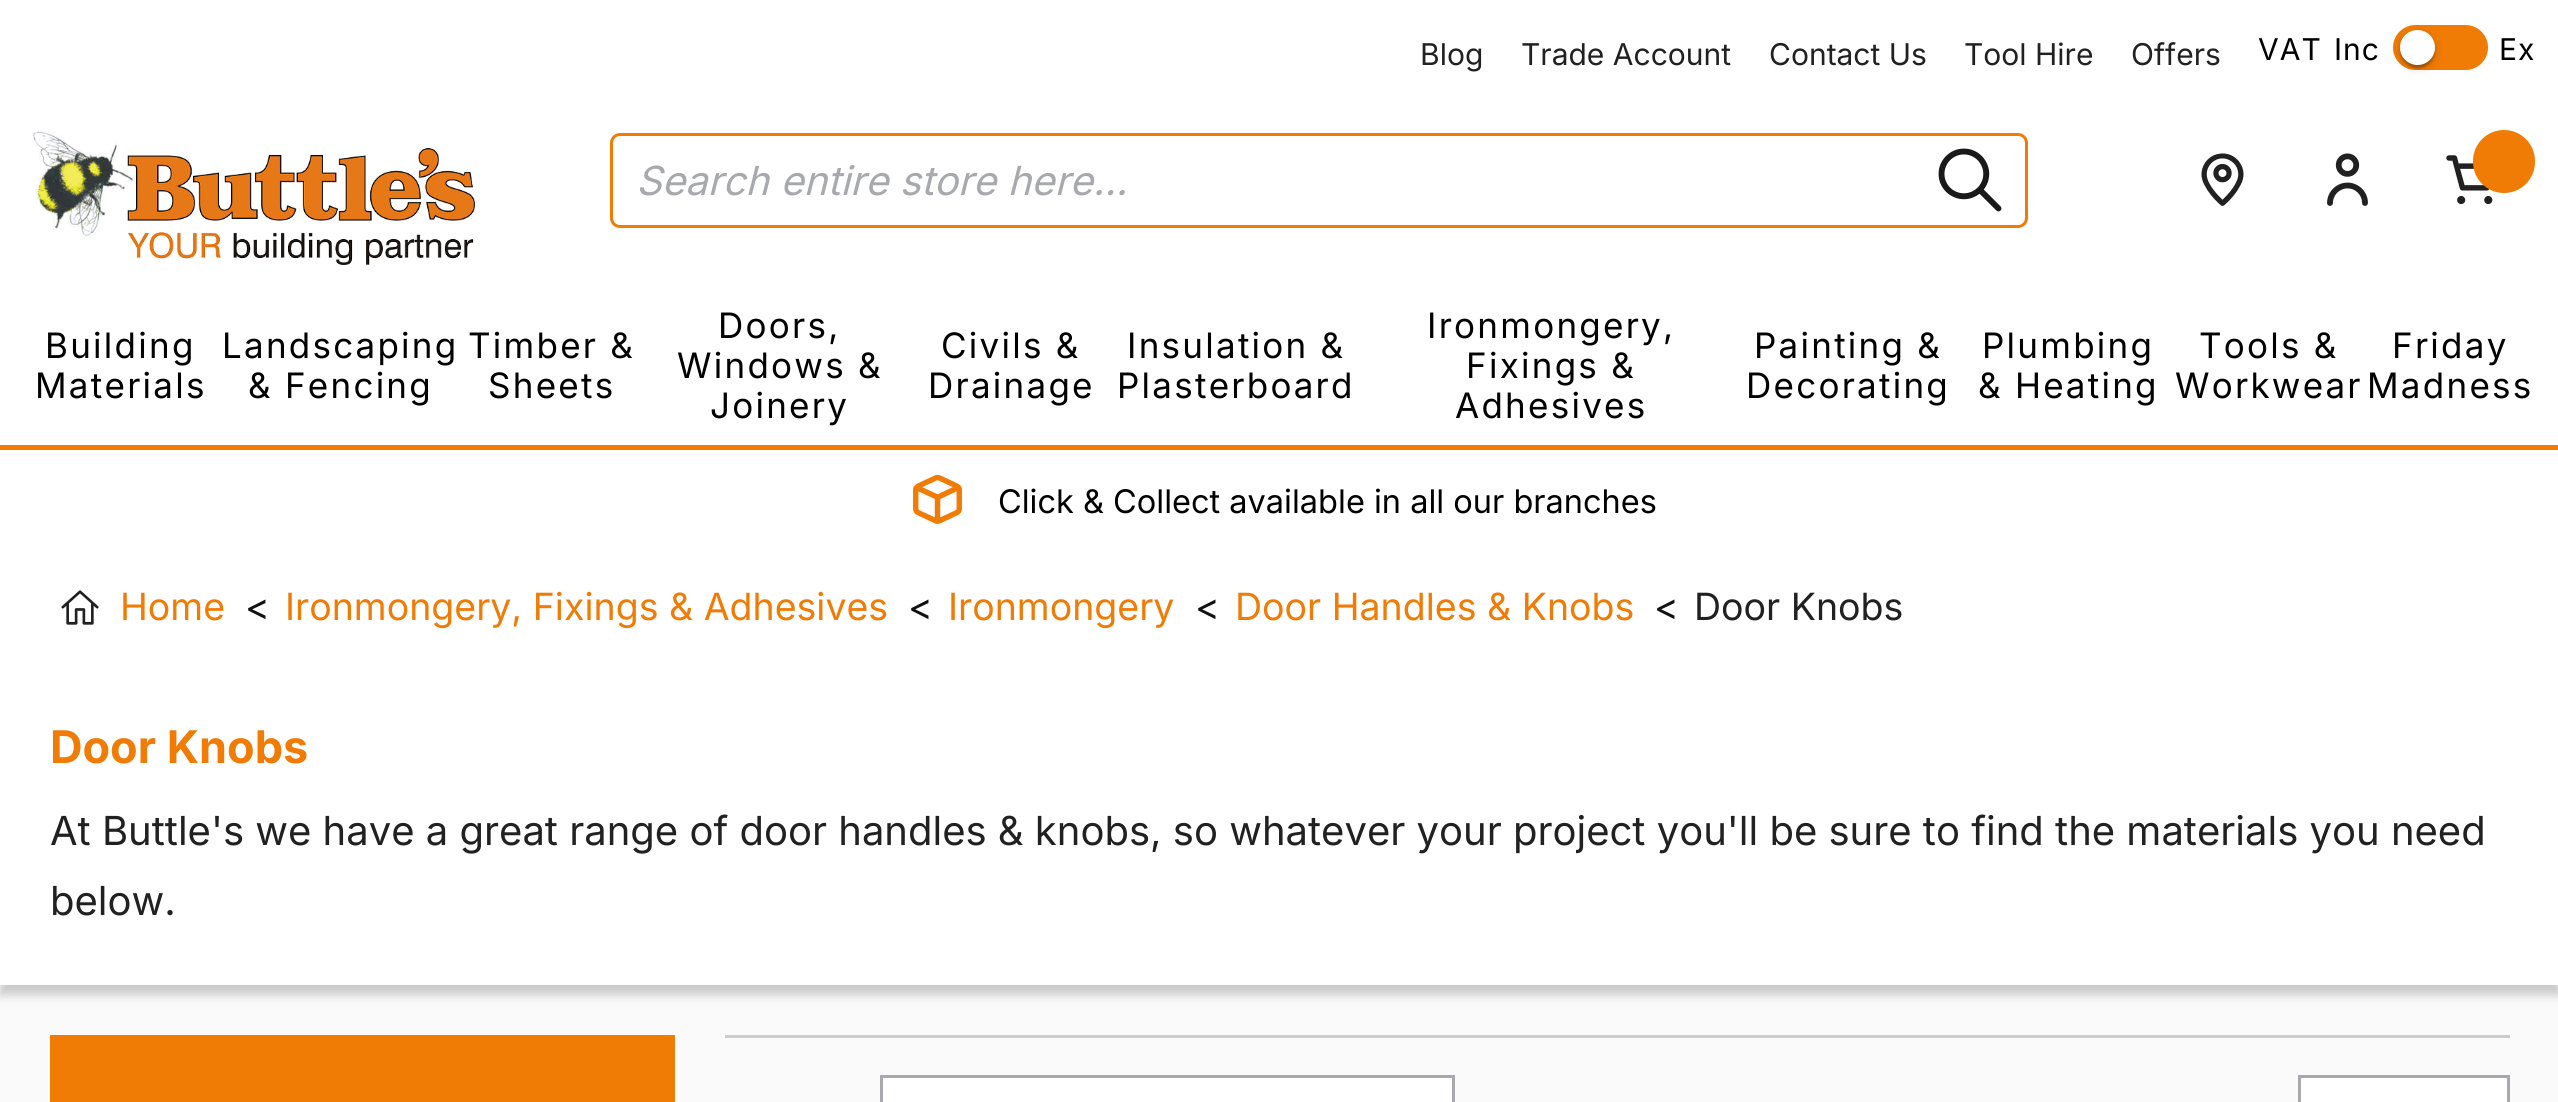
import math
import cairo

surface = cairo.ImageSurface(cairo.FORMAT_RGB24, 2558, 1102)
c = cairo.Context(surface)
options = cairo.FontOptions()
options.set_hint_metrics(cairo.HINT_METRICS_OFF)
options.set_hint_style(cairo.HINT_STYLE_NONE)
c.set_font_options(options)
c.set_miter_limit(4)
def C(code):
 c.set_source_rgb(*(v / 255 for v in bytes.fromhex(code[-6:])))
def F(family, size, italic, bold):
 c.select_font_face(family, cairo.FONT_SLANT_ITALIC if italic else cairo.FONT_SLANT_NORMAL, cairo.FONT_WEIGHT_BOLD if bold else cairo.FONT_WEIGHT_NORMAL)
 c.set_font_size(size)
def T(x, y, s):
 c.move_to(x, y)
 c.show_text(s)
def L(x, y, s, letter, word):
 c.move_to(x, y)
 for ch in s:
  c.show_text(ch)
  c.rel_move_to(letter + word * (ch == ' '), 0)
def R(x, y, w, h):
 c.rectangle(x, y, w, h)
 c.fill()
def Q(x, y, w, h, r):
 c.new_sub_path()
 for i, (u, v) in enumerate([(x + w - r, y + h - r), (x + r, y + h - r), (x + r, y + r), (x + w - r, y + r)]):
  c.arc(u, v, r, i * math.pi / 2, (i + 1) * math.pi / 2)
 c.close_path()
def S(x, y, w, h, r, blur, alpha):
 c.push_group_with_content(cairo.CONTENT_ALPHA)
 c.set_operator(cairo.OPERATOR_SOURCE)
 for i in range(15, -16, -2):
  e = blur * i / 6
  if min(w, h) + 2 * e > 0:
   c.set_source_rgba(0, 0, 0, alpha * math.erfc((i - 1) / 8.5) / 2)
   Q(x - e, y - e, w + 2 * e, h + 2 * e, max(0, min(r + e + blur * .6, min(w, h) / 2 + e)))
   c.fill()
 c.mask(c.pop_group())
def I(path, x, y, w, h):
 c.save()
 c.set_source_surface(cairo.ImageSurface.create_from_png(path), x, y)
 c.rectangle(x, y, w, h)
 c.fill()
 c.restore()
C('fafafa')
c.paint()
C('ffffff')
R(0,0,2558,445)
F('Inter',30,0,0)
C('212121')
T(1420,65,'Blog')
T(1521,65,'Trade Account')
T(1769,65,'Contact Us')
T(1964,65,'Tool Hire')
T(2131,65,'Offers')
C('000000')
L(2258,60,'VAT',1,0)
L(2334,60,'Inc',1,0)
C('f07b05')
Q(2393,25,95,45,22.5)
c.fill()
C('000000')
S(2400,33,35,35,17.5,4,.2)
S(2403,38,30,30,15,1,.12)
S(2400,33,35,35,17.5,1,.14)
C('ffffff')
c.arc(2417.5,47.5,17.5,0,2 * math.pi)
c.fill()
C('000000')
L(2499,60,'Ex',1,0)
C('f07b05')
R(0,445,2558,5)
I('1.png',32,129,443,136)
Q(611.5,134.5,1415,92,8.5)
c.set_line_width(3)
c.stroke()
F('Inter',40,1,0)
C('a7a9ac')
T(636,195,'Search entire store here...')
I('2.png',1938,148,64,64)
I('3.png',2201,153,43,53)
I('4.png',2327,153,41,53)
I('5.png',2446,155,47,50)
C('f07b05')
Q(2473,130,62,63,31)
c.fill()
F('Inter',35,0,0)
C('000000')
L(45,358,'Building',2.25,0)
L(35,398,'Materials',2.25,0)
L(222,358,'Landscaping',2.25,0)
L(248,398,'& Fencing',2.25,0)
L(468,358,'Timber &',2.25,0)
L(488,398,'Sheets',2.25,0)
L(718,338,'Doors,',2.25,0)
L(677,378,'Windows &',2.25,0)
L(710,418,'Joinery',2.25,0)
L(941,358,'Civils &',2.25,0)
L(928,398,'Drainage',2.25,0)
L(1127,358,'Insulation &',2.25,0)
L(1117,398,'Plasterboard',2.25,0)
L(1427,338,'Ironmongery,',2.25,0)
L(1466,378,'Fixings &',2.25,0)
L(1455,418,'Adhesives',2.25,0)
L(1754,358,'Painting &',2.25,0)
L(1746,398,'Decorating',2.25,0)
L(1982,358,'Plumbing',2.25,0)
L(1978,398,'& Heating',2.25,0)
L(2199,358,'Tools &',2.25,0)
L(2175,398,'Workwear',2.25,0)
L(2392,358,'Friday',2.25,0)
L(2367,398,'Madness',2.25,0)
C('ffffff')
R(0,450,2558,213)
I('6.png',913,474,49,50)
F('Inter',32.5,0,0)
C('000000')
T(998,513,'Click & Collect available in all our branches')
I('7.png',61,590,38,35)
F('Inter',37.5,0,0)
C('f07b05')
T(120,620,'Home')
C('121212')
T(245,620,'<')
C('f07b05')
T(285,620,'Ironmongery, Fixings & Adhesives')
C('121212')
T(908,620,'<')
C('f07b05')
T(948,620,'Ironmongery')
C('121212')
T(1195,620,'<')
C('f07b05')
T(1235,620,'Door Handles & Knobs')
C('121212')
T(1654,620,'<')
C('212121')
T(1694,620,'Door Knobs')
C('000000')
S(0,673,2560,322,0,5,.2)
C('ffffff')
R(0,663,2558,322)
F('Inter',45,0,1)
C('f07b05')
T(50,763,'Door Knobs')
F('Inter',40,0,0)
C('212121')
T(50,845,'At Buttle\'s we have a great range of door handles & knobs, so whatever your project you\'ll be sure to find the materials you need')
T(50,915,'below.')
C('f07b05')
R(50,1035,625,67)
C('cbcccd')
R(725,1035,1785,3)
C('ffffff')
c.rectangle(881.5,1076.5,572,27)
c.fill_preserve()
C('a7a9ac')
c.stroke()
C('ffffff')
c.rectangle(2299.5,1076.5,209,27)
c.fill_preserve()
C('a7a9ac')
c.stroke()
surface.write_to_png('o.png')
